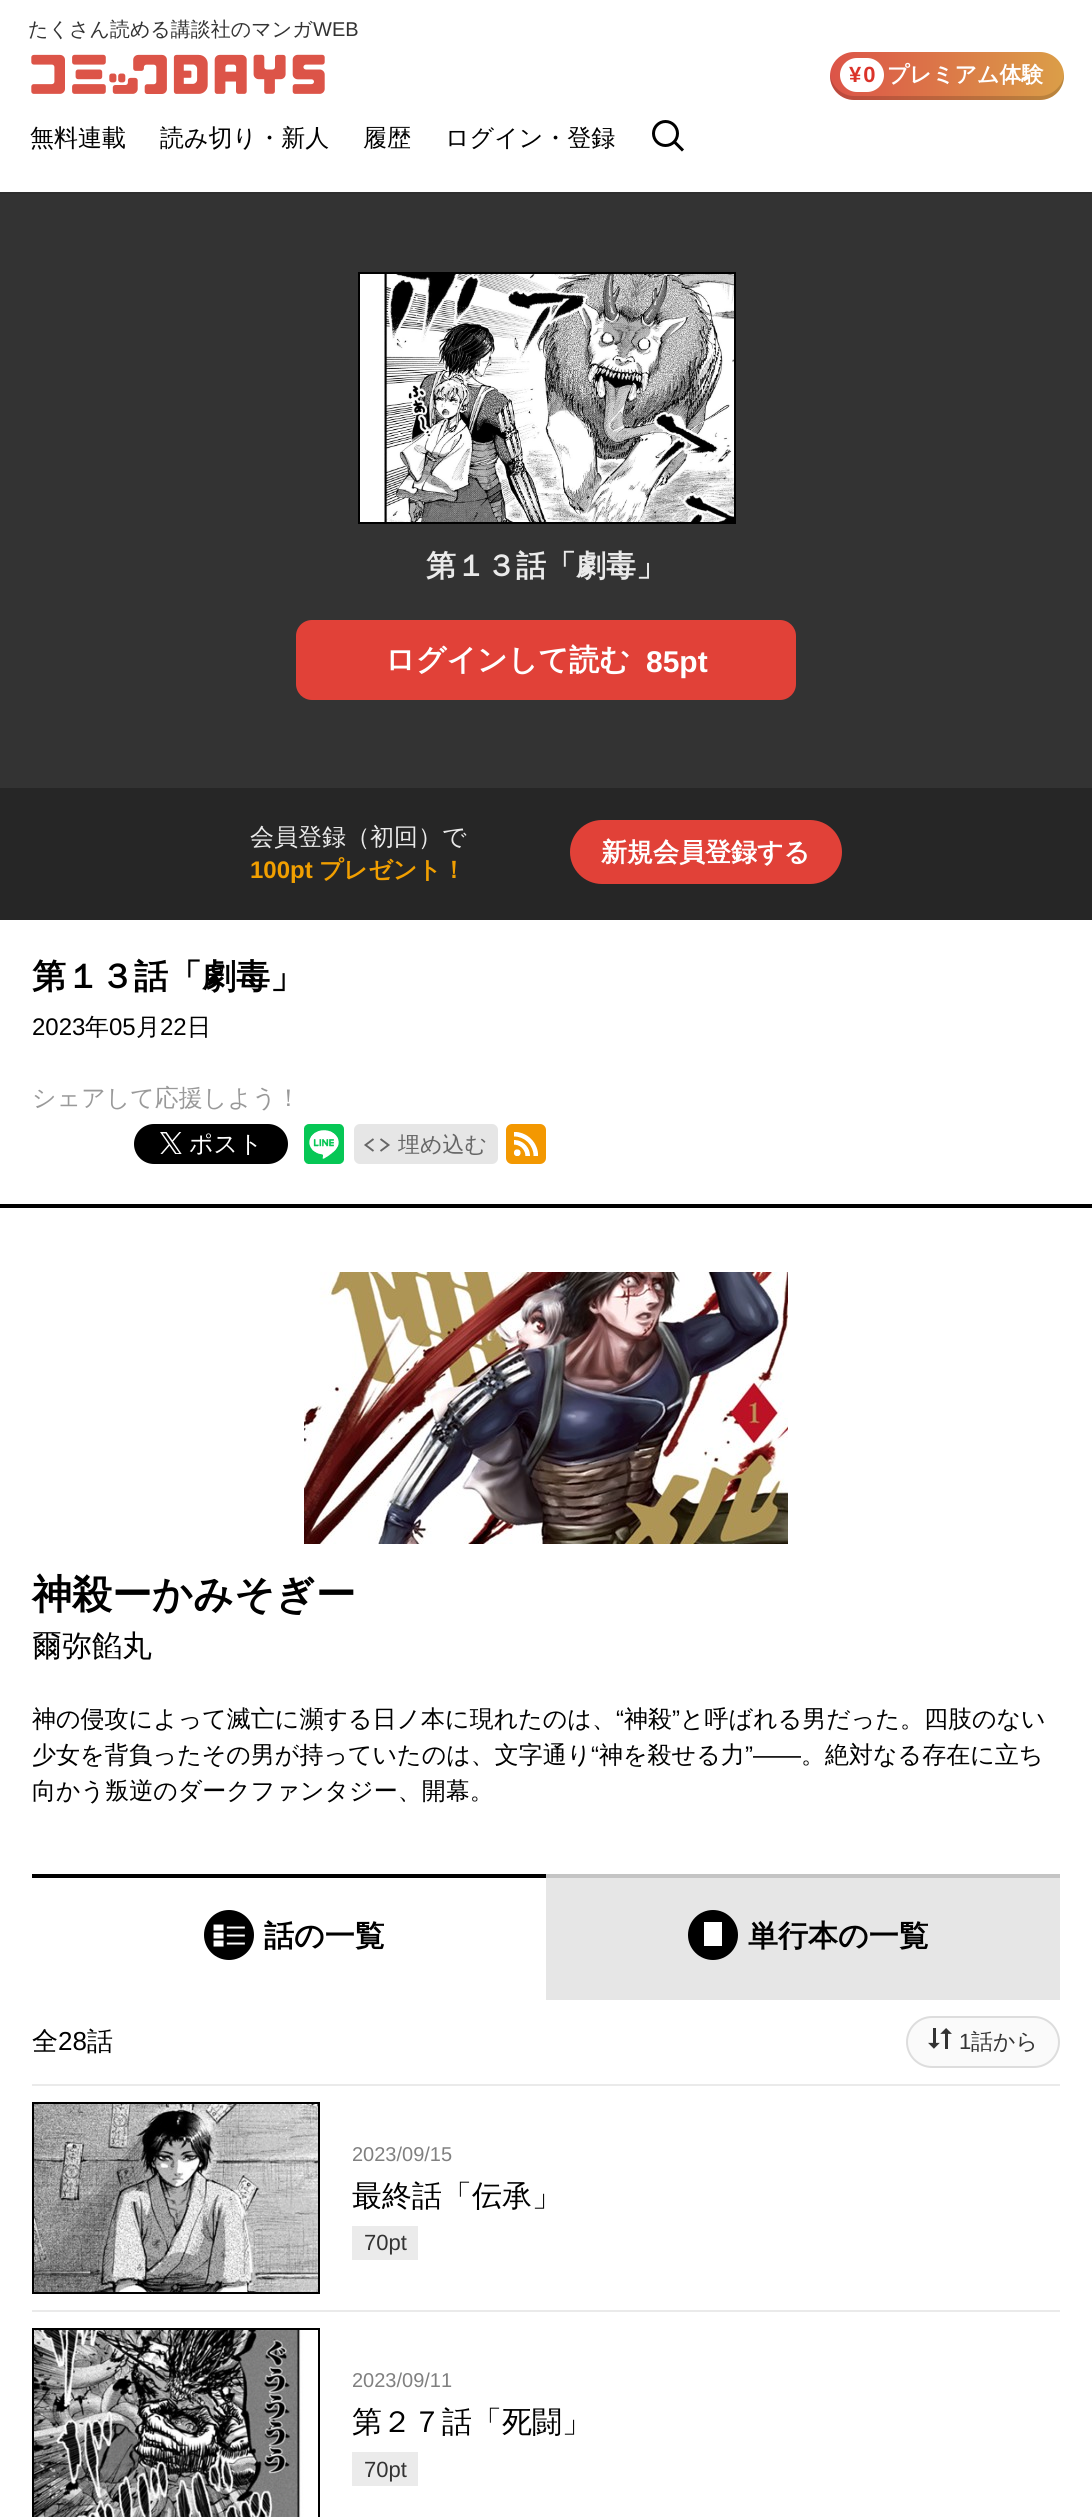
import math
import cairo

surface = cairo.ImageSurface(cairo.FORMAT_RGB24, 1092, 2517)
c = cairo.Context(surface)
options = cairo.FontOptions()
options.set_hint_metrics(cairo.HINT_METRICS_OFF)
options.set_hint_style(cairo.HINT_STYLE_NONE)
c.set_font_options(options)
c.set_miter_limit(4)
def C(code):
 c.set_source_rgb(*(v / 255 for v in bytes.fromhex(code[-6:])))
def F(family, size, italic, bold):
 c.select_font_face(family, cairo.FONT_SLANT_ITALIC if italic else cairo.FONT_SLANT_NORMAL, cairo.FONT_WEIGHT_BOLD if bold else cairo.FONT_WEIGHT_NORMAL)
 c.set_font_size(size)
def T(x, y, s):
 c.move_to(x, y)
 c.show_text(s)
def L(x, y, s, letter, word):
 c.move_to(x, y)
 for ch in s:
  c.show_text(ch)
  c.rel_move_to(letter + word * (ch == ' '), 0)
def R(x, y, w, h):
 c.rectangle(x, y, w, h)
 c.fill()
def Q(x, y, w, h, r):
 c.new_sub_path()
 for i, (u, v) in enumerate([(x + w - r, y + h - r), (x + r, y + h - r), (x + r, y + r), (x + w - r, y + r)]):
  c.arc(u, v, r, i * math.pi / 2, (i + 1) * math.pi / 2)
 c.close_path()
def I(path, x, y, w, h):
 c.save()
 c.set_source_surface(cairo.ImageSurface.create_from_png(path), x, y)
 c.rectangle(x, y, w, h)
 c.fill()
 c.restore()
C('ffffff')
c.paint()
C('2e2e2e')
R(0,192,1092,2)
F('WenQuanYi Zen Hei Medium',20,0,0)
C('333333')
T(28,36,'たくさん読める講談社のマンガ')
F('Liberation Sans',20,0,0)
T(313,36,'WEB')
I('1.png',31,54,294,40)
gradient = cairo.LinearGradient(830,76,1064,76)
gradient.add_color_stop_rgba(0,0.863,0.329,0.282,1)
gradient.add_color_stop_rgba(1,0.859,0.62,0.282,1)
c.set_source(gradient)
Q(830,52,234,48,24)
c.fill()
c.set_source_rgba(0,0,0,0.15)
c.new_path()
c.move_to(830,74)
c.line_to(830,76)
c.curve_to(830,89,841,100,854,100)
c.line_to(1040,100)
c.curve_to(1053,100,1064,89,1064,76)
c.line_to(1064,74)
c.curve_to(1063,86,1052,96,1040,96)
c.line_to(854,96)
c.curve_to(842,96,831,86,830,74)
c.close_path()
c.fill()
C('ffffff')
Q(840,58,44,34,17)
c.fill()
F('Liberation Sans',22,0,1)
C('db332a')
L(849,82,'¥0',2,0)
F('WenQuanYi Zen Hei',22,0,1)
C('ffffff')
T(887,82,'プレミアム体験')
F('WenQuanYi Zen Hei Medium',24,0,0)
C('000000')
T(30,146,'無料連載')
T(160,146,'読み切り・新人')
T(363,146,'履歴')
T(445,146,'ログイン・登録')
c.new_path()
c.arc(665.5,133.5,12,0,2 * math.pi)
c.set_line_width(3)
c.stroke()
c.new_path()
c.move_to(673.5,141)
c.line_to(683,150.5)
c.stroke()
C('333333')
R(0,194,1092,594)
c.rectangle(359,273,376,250)
C('000000')
c.set_line_width(2)
c.stroke()
I('2.png',360,274,374,248)
F('WenQuanYi Zen Hei',30,0,1)
C('eaeaea')
T(426,576,'第１３話「劇毒」')
C('e14138')
Q(296,620,500,80,16)
c.fill()
C('ffffff')
T(385,670,'ログインして読む')
F('Liberation Sans',30,0,1)
T(646,672,'85pt')
C('262626')
R(0,788,1092,132)
F('WenQuanYi Zen Hei Medium',24,0,0)
C('eaeaea')
T(250,845,'会員登録（初回）で')
F('Liberation Sans',24,0,1)
C('f19f00')
T(250,878,'100pt')
F('WenQuanYi Zen Hei',24,0,1)
T(319,878,'プレゼント！')
C('e14138')
Q(570,820,272,64,32)
c.fill()
F('WenQuanYi Zen Hei',26,0,1)
C('ffffff')
T(601,861,'新規会員登録する')
C('000000')
R(0,1204,1092,4)
F('WenQuanYi Zen Hei',34,0,1)
T(32,988,'第１３話「劇毒」')
F('Liberation Sans',24,0,0)
T(32,1035,'2023')
F('WenQuanYi Zen Hei Medium',24,0,0)
T(85,1035,'年')
F('Liberation Sans',24,0,0)
T(109,1035,'05')
F('WenQuanYi Zen Hei Medium',24,0,0)
T(136,1035,'月')
F('Liberation Sans',24,0,0)
T(160,1035,'22')
F('WenQuanYi Zen Hei Medium',24,0,0)
T(187,1035,'日')
C('999999')
T(32,1106,'シェアして応援しよう！')
C('000000')
Q(134,1124,154,40,20)
c.fill()
I('3.png',160,1132,22,22)
C('ffffff')
T(189,1152,'ポスト')
I('4.png',304,1124,40,40)
C('e6e6e6')
Q(354,1124,144,40,6)
c.fill()
c.new_path()
c.move_to(373.5,1139)
c.line_to(365.5,1145)
c.line_to(373.5,1151)
c.move_to(380.5,1151)
c.line_to(388.5,1145)
c.line_to(380.5,1139)
C('666666')
c.set_line_width(1.9)
c.stroke()
F('WenQuanYi Zen Hei Medium',22,0,0)
T(398,1152,'埋め込む')
C('f39801')
Q(506,1124,40,40,6)
c.fill()
I('5.png',514,1132,24,24)
I('6.png',304,1272,484,272)
F('WenQuanYi Zen Hei',40,0,1)
C('000000')
T(32,1608,'神殺ーかみそぎー')
F('WenQuanYi Zen Hei Medium',30,0,0)
T(32,1656,'爾弥餡丸')
F('WenQuanYi Zen Hei Medium',24,0,0)
T(32,1727,'神の侵攻によって滅亡に瀕する日ノ本に現れたのは、')
F('Liberation Sans',24,0,0)
T(616,1727,'“')
F('WenQuanYi Zen Hei Medium',24,0,0)
T(624,1727,'神殺')
F('Liberation Sans',24,0,0)
T(672,1727,'”')
F('WenQuanYi Zen Hei Medium',24,0,0)
T(680,1727,'と呼ばれる男だった。四肢のない')
T(32,1763,'少女を背負ったその男が持っていたのは、文字通り')
F('Liberation Sans',24,0,0)
T(591,1763,'“')
F('WenQuanYi Zen Hei Medium',24,0,0)
T(599,1763,'神を殺せる力')
F('Liberation Sans',24,0,0)
T(745,1763,'”――')
F('WenQuanYi Zen Hei Medium',24,0,0)
T(801,1763,'。絶対なる存在に立ち')
T(32,1799,'向かう叛逆のダークファンタジー、開幕。')
R(32,1874,514,4)
I('7.png',204,1910,50,50)
F('WenQuanYi Zen Hei',30,0,1)
T(264,1946,'話の一覧')
C('e6e6e6')
R(546,1878,514,122)
C('c4c4c4')
R(546,1874,514,4)
C('000000')
c.new_path()
c.arc(713,1935,25,0,2 * math.pi)
c.fill()
C('ffffff')
R(704,1922,18,24)
C('000000')
T(748,1946,'単行本の一覧')
C('eaeaea')
R(32,2084,1028,2)
F('WenQuanYi Zen Hei Medium',26,0,0)
C('000000')
T(32,2050,'全')
F('Liberation Sans',26,0,0)
T(58,2050,'28')
F('WenQuanYi Zen Hei Medium',26,0,0)
T(87,2050,'話')
C('fafafa')
Q(907,2017,152,50,25)
c.fill_preserve()
C('dddddd')
c.set_line_width(2)
c.stroke()
I('8.png',928,2028,24,21)
F('Liberation Sans',22,0,0)
C('333333')
T(959,2049,'1')
F('WenQuanYi Zen Hei Medium',22,0,0)
T(971,2049,'話から')
C('eaeaea')
R(32,2310,1028,2)
c.rectangle(33,2103,286,190)
C('000000')
c.stroke()
I('9.png',34,2104,284,188)
F('Liberation Sans',20,0,0)
C('808080')
T(352,2161,'2023/09/15')
F('WenQuanYi Zen Hei Medium',30,0,0)
C('000000')
T(352,2206,'最終話「伝承」')
C('ebebeb')
R(352,2226,66,34)
F('Liberation Sans',22,0,0)
C('333333')
T(364,2250,'70pt')
c.rectangle(33,2329,286,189)
C('000000')
c.stroke()
I('10.png',34,2330,284,187)
F('Liberation Sans',20,0,0)
C('808080')
T(352,2387,'2023/09/11')
F('WenQuanYi Zen Hei Medium',30,0,0)
C('000000')
T(352,2432,'第２７話「死闘」')
C('ebebeb')
R(352,2452,66,34)
F('Liberation Sans',22,0,0)
C('333333')
T(364,2477,'70pt')
surface.write_to_png('o.png')
